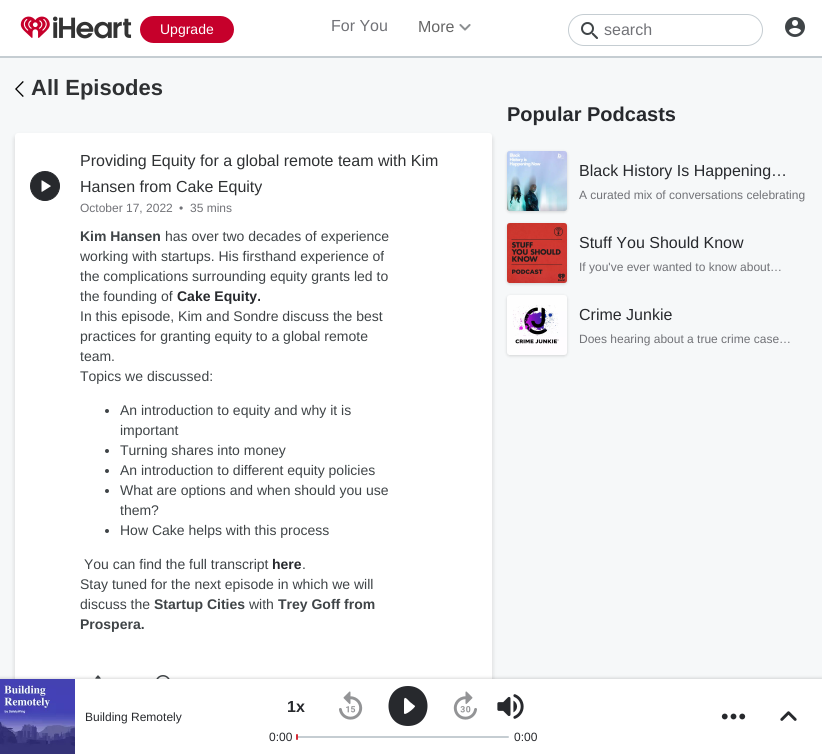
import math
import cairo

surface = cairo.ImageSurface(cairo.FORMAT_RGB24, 822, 754)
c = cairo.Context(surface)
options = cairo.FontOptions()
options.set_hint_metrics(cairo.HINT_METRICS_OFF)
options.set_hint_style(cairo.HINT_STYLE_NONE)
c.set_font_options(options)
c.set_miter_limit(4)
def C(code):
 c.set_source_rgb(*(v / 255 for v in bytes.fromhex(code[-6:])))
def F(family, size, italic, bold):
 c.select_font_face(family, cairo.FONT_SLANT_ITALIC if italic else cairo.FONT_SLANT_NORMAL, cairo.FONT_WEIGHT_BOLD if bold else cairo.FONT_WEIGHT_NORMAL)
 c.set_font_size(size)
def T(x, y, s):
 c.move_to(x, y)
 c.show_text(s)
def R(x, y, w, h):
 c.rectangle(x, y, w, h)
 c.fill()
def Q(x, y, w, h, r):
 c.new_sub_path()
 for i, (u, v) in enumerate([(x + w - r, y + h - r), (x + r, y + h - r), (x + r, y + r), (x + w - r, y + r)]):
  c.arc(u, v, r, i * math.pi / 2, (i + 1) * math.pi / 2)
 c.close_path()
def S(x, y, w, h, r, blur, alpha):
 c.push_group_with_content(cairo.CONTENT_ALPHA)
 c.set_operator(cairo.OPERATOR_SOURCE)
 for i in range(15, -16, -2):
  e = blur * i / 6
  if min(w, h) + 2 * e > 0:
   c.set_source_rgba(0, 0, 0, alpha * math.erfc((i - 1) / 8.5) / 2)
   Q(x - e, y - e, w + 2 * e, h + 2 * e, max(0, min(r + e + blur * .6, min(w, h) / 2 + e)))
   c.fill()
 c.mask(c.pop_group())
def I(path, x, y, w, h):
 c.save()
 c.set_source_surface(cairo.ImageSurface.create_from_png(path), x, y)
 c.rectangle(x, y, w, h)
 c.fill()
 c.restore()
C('f6f8f9')
c.paint()
C('ffffff')
R(0,0,822,56)
C('c5cdd2')
R(0,56,822,2)
I('1.png',20,16,112,23)
C('c6002b')
Q(140,16,94,27,13.5)
c.fill()
F('Liberation Sans',14,0,0)
C('ffffff')
T(160,34,'Upgrade')
F('Liberation Sans',16,0,0)
C('717277')
T(331,31,'For You')
C('666666')
T(418,32,'More')
I('2.png',459,24,12,7)
Q(568.5,14.5,194,31,15.5)
C('c5cdd2')
c.set_line_width(1)
c.stroke()
I('3.png',581,22,17,17)
C('717277')
T(604,35,'search')
I('4.png',785,17,20,20)
I('5.png',15,81,9,16)
F('Liberation Sans',22,0,1)
C('2f3133')
T(31,95,'All Episodes')
C('000000')
S(15,136,477,594,3,2.5,.15)
C('ffffff')
Q(15,133,477,594,3)
c.fill()
C('27292d')
c.arc(45,186,14.5,0,2 * math.pi)
c.fill_preserve()
c.stroke()
I('6.png',41,180,10,12)
F('Liberation Sans',16,0,0)
C('2f3133')
T(80,166,'Providing Equity for a global remote team with Kim')
T(80,192,'Hansen from Cake Equity')
F('Liberation Sans',12,0,0)
C('717277')
T(80,212,'October 17, 2022')
T(179,212,'•')
T(190,212,'35 mins')
F('Liberation Sans',14,0,1)
C('3f4447')
T(80,241,'Kim Hansen')
F('Liberation Sans',14,0,0)
T(165,241,'has over two decades of experience')
T(80,261,'working with startups. His firsthand experience of')
T(80,281,'the complications surrounding equity grants led to')
T(80,301,'the founding of')
F('Liberation Sans',14,0,1)
C('27292d')
T(177,301,'Cake Equity.')
F('Liberation Sans',14,0,0)
C('3f4447')
T(80,321,'In this episode, Kim and Sondre discuss the best')
T(80,341,'practices for granting equity to a global remote')
T(80,361,'team.')
T(80,381,'Topics we discussed:')
c.new_path()
c.arc(107,411,2,0,2 * math.pi)
c.fill()
T(120,415,'An introduction to equity and why it is')
T(120,435,'important')
c.new_path()
c.arc(107,451,2,0,2 * math.pi)
c.fill()
T(120,455,'Turning shares into money')
c.new_path()
c.arc(107,471,2,0,2 * math.pi)
c.fill()
T(120,475,'An introduction to different equity policies')
c.new_path()
c.arc(107,491,2,0,2 * math.pi)
c.fill()
T(120,495,'What are options and when should you use')
T(120,515,'them?')
c.new_path()
c.arc(107,531,2,0,2 * math.pi)
c.fill()
T(120,535,'How Cake helps with this process')
T(84,569,'You can find the full transcript')
F('Liberation Sans',14,0,1)
C('27292d')
T(272,569,'here')
F('Liberation Sans',14,0,0)
C('3f4447')
T(302,569,'.')
T(80,589,'Stay tuned for the next episode in which we will')
T(80,609,'discuss the')
F('Liberation Sans',14,0,1)
T(154,609,'Startup Cities')
F('Liberation Sans',14,0,0)
T(249,609,'with')
F('Liberation Sans',14,0,1)
T(278,609,'Trey Goff from')
T(80,629,'Prospera.')
I('7.png',95,675,6,4)
I('8.png',156,675,14,4)
F('Liberation Sans',20,0,1)
C('27292d')
T(507,121,'Popular Podcasts')
C('000000')
S(507,152,60,60,3,1.5,.15)
I('9.png',507,151,60,60)
F('Liberation Sans',16,0,0)
C('27292d')
T(579,176,'Black History Is Happening…')
F('Liberation Sans',12,0,0)
C('717277')
T(579,199,'A curated mix of conversations celebrating')
C('000000')
S(507,224,60,60,3,1.5,.15)
I('10.png',507,223,60,60)
F('Liberation Sans',16,0,0)
C('27292d')
T(579,248,'Stuff You Should Know')
F('Liberation Sans',12,0,0)
C('717277')
T(579,271,'If you\'ve ever wanted to know about…')
C('000000')
S(507,296,60,60,3,1.5,.15)
I('11.png',507,295,60,60)
F('Liberation Sans',16,0,0)
C('27292d')
T(579,320,'Crime Junkie')
F('Liberation Sans',12,0,0)
C('717277')
T(579,343,'Does hearing about a true crime case…')
C('000000')
S(0,678,822,75,0,1.5,.15)
C('ffffff')
R(75,679,747,75)
I('12.png',0,679,75,75)
C('27292d')
T(85,721,'Building Remotely')
F('Liberation Sans',16,0,1)
T(287,712,'1x')
I('13.png',339,691,24,29)
c.new_path()
c.move_to(408,686)
c.curve_to(382,686,382,726,408,726)
c.curve_to(434,726,434,686,408,686)
c.close_path()
c.move_to(404,713)
c.line_to(404,701)
c.curve_to(404,695,407,699,410,702)
c.line_to(415,706)
c.curve_to(416,707,404,717,404,713)
c.close_path()
c.fill()
I('14.png',453,691,24,29)
I('15.png',497,694,27,25)
F('Liberation Sans',12,0,0)
T(269,741,'0:00')
C('c5cdd2')
Q(297,736,212,2,1)
c.fill()
C('d52d37')
Q(296,734,2,6,1)
c.fill()
C('27292d')
T(514,741,'0:00')
I('16.png',721,713,25,7)
I('17.png',780,711,17,10)
surface.write_to_png('o.png')
